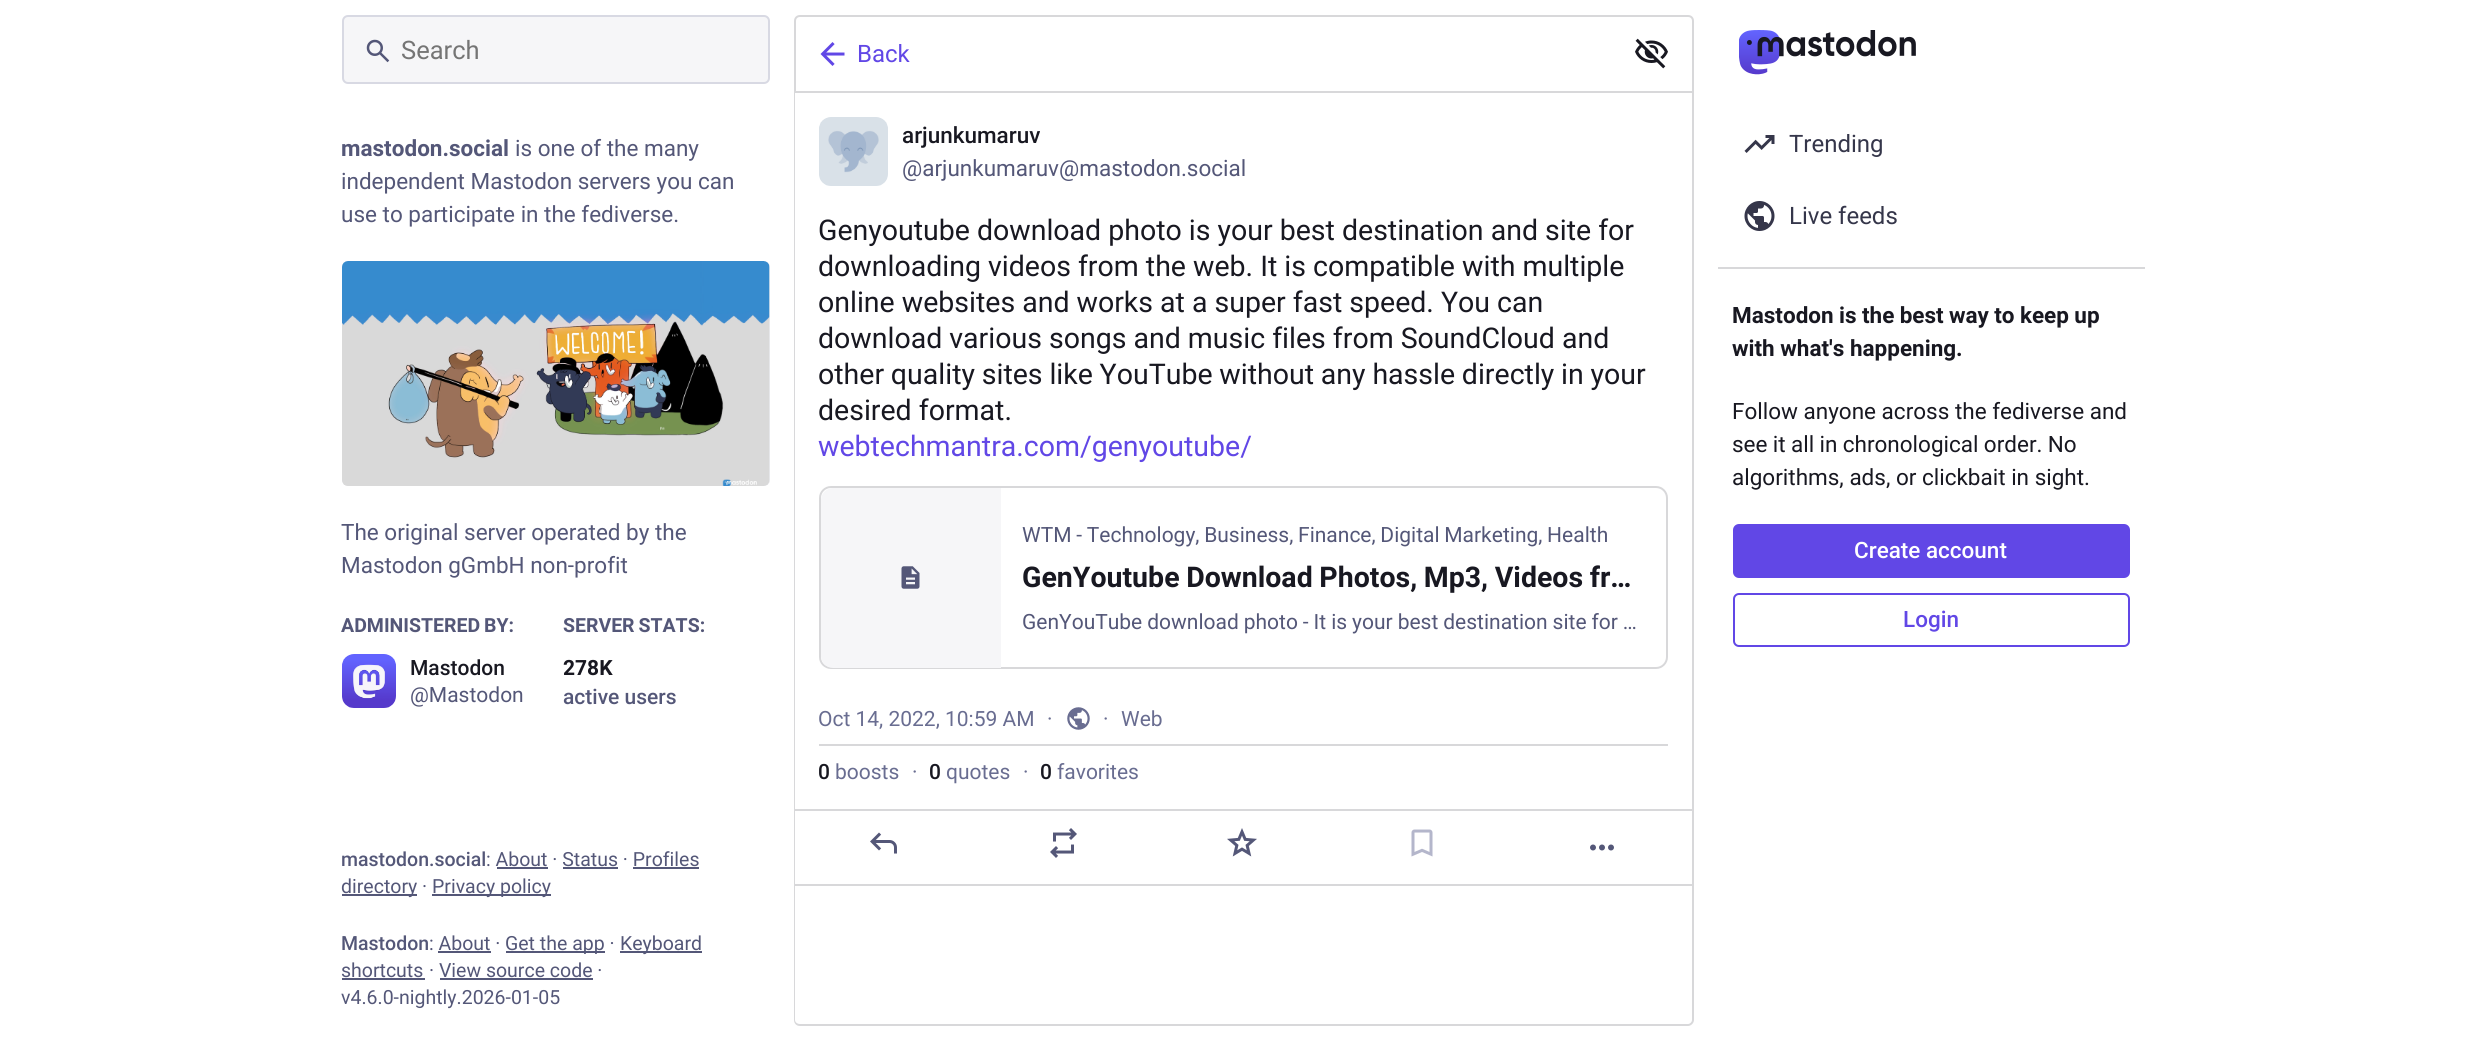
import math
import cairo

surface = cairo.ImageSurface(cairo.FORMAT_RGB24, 2485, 1041)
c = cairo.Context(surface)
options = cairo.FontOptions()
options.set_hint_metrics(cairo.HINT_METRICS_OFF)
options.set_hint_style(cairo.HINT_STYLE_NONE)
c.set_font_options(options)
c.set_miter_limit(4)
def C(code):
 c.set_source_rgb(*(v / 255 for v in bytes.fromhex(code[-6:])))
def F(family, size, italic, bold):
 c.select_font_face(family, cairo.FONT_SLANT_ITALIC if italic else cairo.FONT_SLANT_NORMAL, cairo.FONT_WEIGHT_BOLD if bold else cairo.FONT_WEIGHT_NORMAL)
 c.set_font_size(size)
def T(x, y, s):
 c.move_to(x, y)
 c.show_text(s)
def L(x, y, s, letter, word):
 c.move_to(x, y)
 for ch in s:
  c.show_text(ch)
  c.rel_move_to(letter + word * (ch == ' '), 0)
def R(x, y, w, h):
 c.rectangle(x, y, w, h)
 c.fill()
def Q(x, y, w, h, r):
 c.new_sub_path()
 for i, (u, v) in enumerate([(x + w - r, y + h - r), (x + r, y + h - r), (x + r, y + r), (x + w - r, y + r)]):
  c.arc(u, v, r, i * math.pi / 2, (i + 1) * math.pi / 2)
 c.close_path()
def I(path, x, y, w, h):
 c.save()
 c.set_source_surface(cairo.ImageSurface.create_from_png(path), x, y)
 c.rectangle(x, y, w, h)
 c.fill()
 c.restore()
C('ffffff')
c.paint()
C('f6f6f8')
Q(343,16,426,67,5)
c.fill_preserve()
C('d8d9e3')
c.stroke()
I('1.png',366,39,24,24)
F('Roboto',25.5,0,0)
C('757575')
T(401,59,'Search')
F('Roboto',22.5,0,1)
C('545778')
T(341,156,'mastodon.social')
F('Roboto',22.5,0,0)
T(515,156,'is one of the many')
T(341,189,'independent Mastodon servers you can')
T(341,222,'use to participate in the fediverse.')
C('ecedf1')
Q(342,261,428,225,6)
c.fill()
I('2.png',342,261,428,225)
C('545778')
T(341,540,'The original server operated by the')
T(341,573,'Mastodon gGmbH non-profit')
F('Roboto',19.5,0,1)
L(341,632,'ADMINISTERED BY:',0,-1)
I('3.png',342,654,54,54)
F('Roboto Medium',21,0,0)
C('181821')
T(410,675,'Mastodon')
F('Roboto',21,0,0)
C('545778')
T(410,702,'@Mastodon')
F('Roboto',19.5,0,1)
L(563,632,'SERVER STATS:',0,-1)
F('Roboto',21,0,1)
C('181821')
T(563,675,'278K')
F('Roboto Medium',21,0,0)
C('545778')
T(563,704,'active users')
F('Roboto Medium',19.5,0,0)
T(341,866,'mastodon.social')
F('Roboto',19.5,0,0)
T(486,866,': About · Status · Profiles')
R(497,867,51,2)
R(563,867,55,2)
R(342,894,75,2)
T(341,893,'directory ·')
R(633,867,66,2)
R(432,894,119,2)
T(432,893,'Privacy policy')
F('Roboto Medium',19.5,0,0)
T(341,950,'Mastodon')
F('Roboto',19.5,0,0)
T(429,950,': About ·')
R(506,951,99,2)
T(505,950,'Get the app ·')
R(620,951,82,2)
T(620,950,'Keyboard')
R(438,951,53,2)
T(341,977,'shortcuts')
R(342,978,83,2)
T(429,977,'· View source code ·')
R(440,978,153,2)
T(341,1004,'v4.6.0-nightly.2026-01-05')
c.new_path()
c.move_to(800,16)
c.line_to(1688,16)
c.curve_to(1691,16,1693,18,1693,21)
c.line_to(1693,92)
c.line_to(795,92)
c.line_to(795,21)
c.curve_to(795,18,797,16,800,16)
c.close_path()
C('d8d8da')
c.stroke()
I('4.png',820,42,25,24)
F('Roboto',24,0,0)
C('6147e6')
T(857,62,'Back')
I('5.png',1635,38,33,31)
C('d8d8da')
c.set_fill_rule(cairo.FILL_RULE_EVEN_ODD)
c.new_path()
c.move_to(794,93)
c.line_to(1694,93)
c.line_to(1694,1020)
c.curve_to(1694,1023,1691,1026,1688,1026)
c.line_to(800,1026)
c.curve_to(796,1026,794,1023,794,1020)
c.close_path()
c.move_to(795,93)
c.line_to(1692,93)
c.line_to(1692,1020)
c.curve_to(1692,1022,1690,1024,1688,1024)
c.line_to(800,1024)
c.curve_to(797,1024,795,1022,795,1020)
c.close_path()
c.fill()
I('6.png',819,117,69,69)
F('Roboto Medium',22.5,0,0)
C('181821')
T(902,143,'arjunkumaruv')
F('Roboto',22.5,0,0)
C('545778')
T(902,176,'@arjunkumaruv@mastodon.social')
F('Roboto',28.5,0,0)
C('181821')
T(818,240,'Genyoutube download photo is your best destination and site for')
T(818,276,'downloading videos from the web. It is compatible with multiple')
T(818,312,'online websites and works at a super fast speed. You can')
T(818,348,'download various songs and music files from SoundCloud and')
L(818,384,'other quality sites like YouTube without any hassle directly in your',0,-.25)
T(818,420,'desired format.')
C('6147e6')
T(818,456,'webtechmantra.com/genyoutube/')
Q(820,487,847,181,11)
C('d8d8da')
c.stroke()
c.save()
c.set_fill_rule(cairo.FILL_RULE_WINDING)
Q(821,488,846,180,11)
c.clip()
C('f6f6f8')
c.new_path()
c.move_to(833,488)
c.line_to(1001,488)
c.line_to(1001,668)
c.line_to(833,668)
c.curve_to(826.5,668,821,662.5,821,656)
c.line_to(821,500)
c.curve_to(821,493.5,826.5,488,833,488)
c.close_path()
c.fill()
c.restore()
I('7.png',901,566,19,23)
F('Roboto',21,0,0)
C('545778')
L(1022,542,'WTM - Technology, Business, Finance, Digital Marketing, Health',0,-.5)
F('Roboto',28.5,0,1)
C('181821')
L(1022,587,'GenYoutube Download Photos, Mp3, Videos fr…',0,-.5)
F('Roboto',21,0,0)
C('545778')
L(1022,629,'GenYouTube download photo - It is your best destination site for …',0,-.25)
C('d8d8da')
R(819,744,849,2)
C('696d91')
T(818,726,'Oct 14, 2022, 10:59 AM')
T(1047,726,'·')
I('8.png',1067,707,23,23)
T(1103,726,'·')
T(1121,726,'Web')
F('Roboto Medium',21,0,0)
C('181821')
T(818,779,'0')
F('Roboto',21,0,0)
C('696d91')
T(835,779,'boosts')
T(912,779,'·')
F('Roboto Medium',21,0,0)
C('181821')
T(929,779,'0')
F('Roboto',21,0,0)
C('696d91')
T(946,779,'quotes')
T(1023,779,'·')
F('Roboto Medium',21,0,0)
C('181821')
T(1040,779,'0')
F('Roboto',21,0,0)
C('696d91')
T(1057,779,'favorites')
C('d8d8da')
R(795,809,897,2)
R(795,884,897,2)
I('9.png',870,832,27,22)
I('10.png',1050,828,27,30)
I('11.png',1227,828,30,29)
I('12.png',1411,829,22,28)
I('13.png',1590,844,24,7)
I('14.png',1739,30,177,45)
I('15.png',1744,135,31,18)
F('Roboto',24,0,0)
C('35364a')
T(1789,152,'Trending')
I('16.png',1744,201,31,30)
T(1789,224,'Live feeds')
C('d8d8da')
R(1718,267,427,2)
F('Roboto',22.5,0,1)
C('181821')
L(1732,323,'Mastodon is the best way to keep up',0,-.25)
T(1732,356,'with what\'s happening.')
F('Roboto',22.5,0,0)
T(1732,419,'Follow anyone across the fediverse and')
L(1732,452,'see it all in chronological order. No',0,-.25)
T(1732,485,'algorithms, ads, or clickbait in sight.')
C('6147e6')
Q(1733,524,397,54,6)
c.fill()
F('Roboto Medium',22.5,0,0)
C('ffffff')
T(1854,558,'Create account')
Q(1734,594,395,52,5)
C('6147e6')
c.stroke()
T(1903,627,'Login')
surface.write_to_png('o.png')
